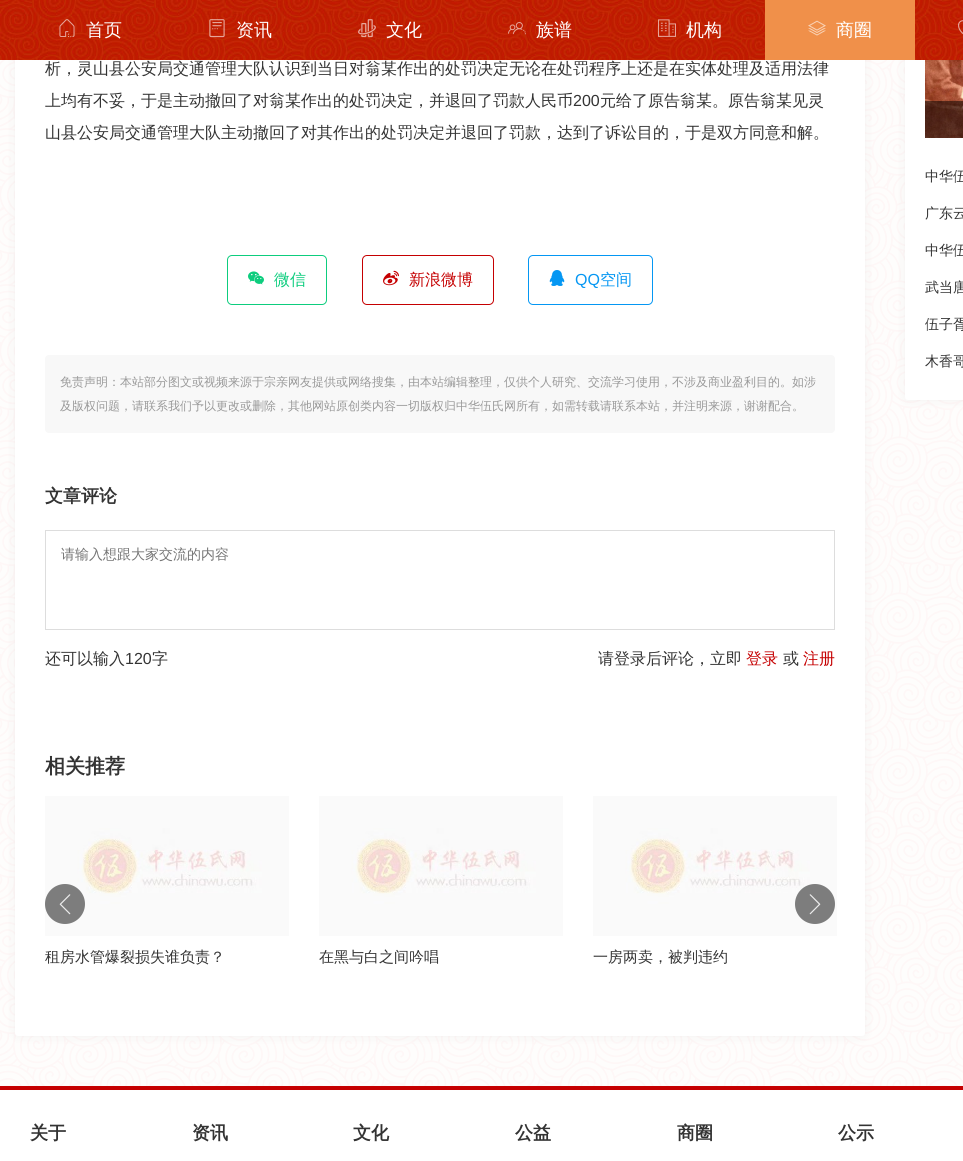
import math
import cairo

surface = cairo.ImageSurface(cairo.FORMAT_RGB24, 963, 1161)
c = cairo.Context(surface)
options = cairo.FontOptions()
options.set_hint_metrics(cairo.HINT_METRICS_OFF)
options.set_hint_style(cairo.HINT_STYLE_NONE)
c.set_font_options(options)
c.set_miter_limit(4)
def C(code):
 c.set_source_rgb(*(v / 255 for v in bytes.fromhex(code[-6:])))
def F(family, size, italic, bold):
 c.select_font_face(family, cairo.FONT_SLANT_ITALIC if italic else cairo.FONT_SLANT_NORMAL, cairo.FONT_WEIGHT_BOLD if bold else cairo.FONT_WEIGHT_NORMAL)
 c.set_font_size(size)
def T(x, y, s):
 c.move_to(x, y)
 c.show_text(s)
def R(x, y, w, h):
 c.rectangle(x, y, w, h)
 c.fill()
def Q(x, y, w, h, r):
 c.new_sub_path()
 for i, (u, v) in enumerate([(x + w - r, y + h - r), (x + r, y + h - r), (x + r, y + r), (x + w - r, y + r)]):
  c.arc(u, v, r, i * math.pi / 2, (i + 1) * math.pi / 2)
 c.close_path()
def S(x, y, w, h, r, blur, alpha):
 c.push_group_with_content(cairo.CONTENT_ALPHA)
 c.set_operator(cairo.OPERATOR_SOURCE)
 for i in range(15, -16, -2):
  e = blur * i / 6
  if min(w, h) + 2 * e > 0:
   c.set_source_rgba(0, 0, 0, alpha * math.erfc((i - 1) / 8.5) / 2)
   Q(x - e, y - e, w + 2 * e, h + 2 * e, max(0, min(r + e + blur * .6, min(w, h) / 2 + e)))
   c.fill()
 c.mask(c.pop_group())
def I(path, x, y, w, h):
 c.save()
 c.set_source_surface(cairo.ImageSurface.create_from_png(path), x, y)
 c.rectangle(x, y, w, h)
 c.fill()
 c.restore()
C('ffffff')
c.paint()
I('9.png',0,60,963,1026)
C('000000')
S(15,-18,850,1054,3,5,.05)
C('ffffff')
Q(15,-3,850,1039,3)
c.fill()
C('000000')
S(905,-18,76,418,3,5,.05)
C('ffffff')
Q(905,-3,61,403,3)
c.fill()
I('1.png',0,0,963,60)
I('2.png',59,19,16,19)
F('WenQuanYi Zen Hei Medium',18,0,0)
T(86,36,'首页')
I('3.png',209,19,16,19)
T(236,36,'资讯')
I('4.png',358,19,18,19)
T(386,36,'文化')
I('5.png',508,22,18,13)
T(536,36,'族谱')
I('6.png',658,19,18,18)
T(686,36,'机构')
C('f0904a')
R(765,0,150,60)
I('7.png',808,20,18,16)
C('ffffff')
T(836,36,'商圈')
I('8.png',958,20,5,14)
F('WenQuanYi Zen Hei Medium',16,0,0)
C('333333')
T(45,74,'析，灵山县公安局交通管理大队认识到当日对翁某作出的处罚决定无论在处罚程序上还是在实体处理及适用法律')
T(45,106,'上均有不妥，于是主动撤回了对翁某作出的处罚决定，并退回了罚款人民币')
F('Liberation Sans',16,0,0)
T(573,106,'200')
F('WenQuanYi Zen Hei Medium',16,0,0)
T(600,106,'元给了原告翁某。原告翁某见灵')
T(45,138,'山县公安局交通管理大队主动撤回了对其作出的处罚决定并退回了罚款，达到了诉讼目的，于是双方同意和解。')
Q(227.5,255.5,99,49,4.5)
C('0dcd7e')
c.set_line_width(1)
c.stroke()
I('10.png',248,271,16,14)
T(274,285,'微信')
Q(362.5,255.5,131,49,4.5)
C('c50001')
c.stroke()
I('11.png',383,270,16,16)
T(409,285,'新浪微博')
Q(528.5,255.5,124,49,4.5)
C('0597f3')
c.stroke()
I('12.png',549,270,16,16)
F('Liberation Sans',16,0,0)
T(575,285,'QQ')
F('WenQuanYi Zen Hei Medium',16,0,0)
T(600,285,'空间')
C('f8f8f8')
Q(45,355,790,78,4)
c.fill()
F('WenQuanYi Zen Hei Medium',12,0,0)
C('999999')
T(60,386,'免责声明：本站部分图文或视频来源于宗亲网友提供或网络搜集，由本站编辑整理，仅供个人研究、交流学习使用，不涉及商业盈利目的。如涉')
T(60,410,'及版权问题，请联系我们予以更改或删除，其他网站原创类内容一切版权归中华伍氏网所有，如需转载请联系本站，并注明来源，谢谢配合。')
F('WenQuanYi Zen Hei',18,0,1)
C('333333')
T(45,502,'文章评论')
c.rectangle(45.5,530.5,789,99)
C('dddddd')
c.stroke()
F('WenQuanYi Zen Hei Medium',14,0,0)
C('757575')
T(61,559,'请输入想跟大家交流的内容')
F('WenQuanYi Zen Hei Medium',16,0,0)
C('333333')
T(45,664,'还可以输入')
F('Liberation Sans',16,0,0)
T(125,664,'120')
F('WenQuanYi Zen Hei Medium',16,0,0)
T(152,664,'字')
T(598,664,'请登录后评论，立即')
C('c50001')
T(746,664,'登录')
C('333333')
T(783,664,'或')
C('c50001')
T(803,664,'注册')
F('WenQuanYi Zen Hei',20,0,1)
C('333333')
T(45,773,'相关推荐')
I('15.png',45,796,244,140)
C('7d7d7d')
c.arc(65,904,20,0,2 * math.pi)
c.fill()
I('13.png',59,894,12,21)
I('15.png',593,796,244,140)
c.arc(815,904,20,0,2 * math.pi)
c.fill()
I('14.png',809,894,12,21)
F('WenQuanYi Zen Hei Medium',15,0,0)
C('333333')
T(45,962,'租房水管爆裂损失谁负责？')
I('15.png',319,796,244,140)
T(319,962,'在黑与白之间吟唱')
T(593,962,'一房两卖，被判违约')
I('16.png',925,60,38,78)
c.set_source_rgba(0,0,0,0.5)
R(925,101,38,37)
F('WenQuanYi Zen Hei Medium',14,0,0)
C('333333')
T(925,181,'中华伍')
T(925,218,'广东云')
T(925,255,'中华伍')
T(925,292,'武当唐')
T(925,329,'伍子胥')
T(925,366,'木香哥')
C('c50001')
R(0,1086,963,4)
F('WenQuanYi Zen Hei',18,0,1)
C('333333')
T(30,1139,'关于')
T(192,1139,'资讯')
T(353,1139,'文化')
T(515,1139,'公益')
T(677,1139,'商圈')
T(838,1139,'公示')
surface.write_to_png('o.png')
